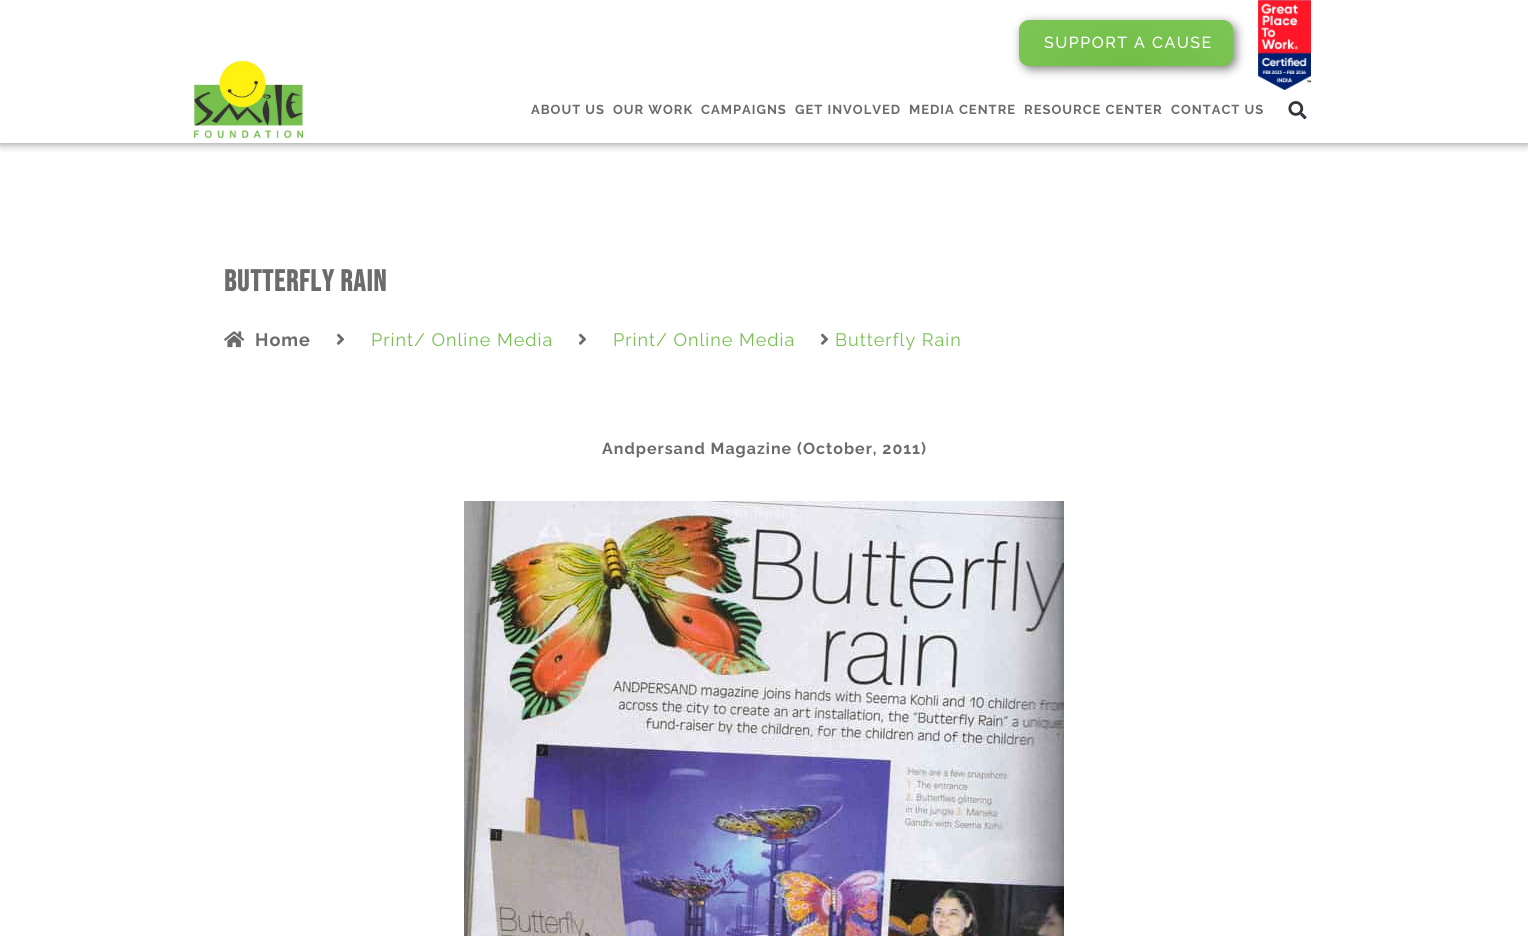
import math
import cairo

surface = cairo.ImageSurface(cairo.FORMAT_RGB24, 1528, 936)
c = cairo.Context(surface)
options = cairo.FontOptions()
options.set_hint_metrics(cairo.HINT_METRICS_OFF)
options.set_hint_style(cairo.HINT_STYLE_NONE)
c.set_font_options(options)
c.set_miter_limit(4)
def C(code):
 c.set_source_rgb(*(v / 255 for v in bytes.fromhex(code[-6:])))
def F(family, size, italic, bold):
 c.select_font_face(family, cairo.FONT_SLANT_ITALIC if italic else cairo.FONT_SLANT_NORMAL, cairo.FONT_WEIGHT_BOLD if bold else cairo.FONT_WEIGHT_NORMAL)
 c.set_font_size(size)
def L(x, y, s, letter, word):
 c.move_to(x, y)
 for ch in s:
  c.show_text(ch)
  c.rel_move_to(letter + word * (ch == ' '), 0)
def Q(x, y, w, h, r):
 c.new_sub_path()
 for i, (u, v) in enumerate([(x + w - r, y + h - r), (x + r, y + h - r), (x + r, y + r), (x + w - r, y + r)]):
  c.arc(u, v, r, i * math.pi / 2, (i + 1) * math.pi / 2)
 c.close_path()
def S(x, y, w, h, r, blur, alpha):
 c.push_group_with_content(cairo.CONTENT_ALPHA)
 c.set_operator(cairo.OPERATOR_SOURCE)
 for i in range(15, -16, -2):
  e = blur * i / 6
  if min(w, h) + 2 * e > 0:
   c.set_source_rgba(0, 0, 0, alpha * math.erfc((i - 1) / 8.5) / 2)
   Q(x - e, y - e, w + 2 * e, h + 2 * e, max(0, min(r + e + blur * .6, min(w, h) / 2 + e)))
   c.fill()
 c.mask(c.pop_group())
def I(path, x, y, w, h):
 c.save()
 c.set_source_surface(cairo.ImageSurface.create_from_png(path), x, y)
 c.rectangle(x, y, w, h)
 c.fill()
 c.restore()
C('ffffff')
c.paint()
c.save()
c.rectangle(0,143,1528,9)
c.clip()
C('000000')
S(0,0,1528,143,0,5,.5)
c.restore()
C('000000')
S(1022,23,214,46,10,5,.5)
gradient = cairo.RadialGradient(0,0,0,0,0,1)
gradient.set_matrix(cairo.Matrix(1 / 151, 0, 0, 1 / 65, -1 * 1126 / 151, -1 * 66 / 65))
gradient.add_color_stop_rgba(0,0.447,0.745,0.267,1)
gradient.add_color_stop_rgba(1,0.49,0.776,0.341,1)
c.set_source(gradient)
Q(1019,20,214,46,10)
c.fill()
F('Raleway Medium',16,0,0)
C('ffffff')
L(1044,48,'SUPPORT A CAUSE',1.5,0)
I('1.png',1258,0,53,90)
I('2.png',194,60,109,79)
F('Raleway',13,0,1)
C('6a6b6a')
L(531,114,'ABOUT US',1,0)
L(613,114,'OUR WORK',1,0)
L(701,114,'CAMPAIGNS',1,0)
L(795,114,'GET INVOLVED',1,0)
L(909,114,'MEDIA CENTRE',1,0)
L(1024,114,'RESOURCE CENTER',1,0)
L(1171,114,'CONTACT US',1,0)
I('3.png',1288,101,19,19)
F('Bebas Neue',30,0,1)
L(224,291,'Butterfly Rain',1,0)
I('4.png',224,331,21,17)
F('Raleway',18,0,1)
L(255,346,'Home',1,0)
I('5.png',336,333,9,12)
F('Raleway',18,0,0)
C('76c04e')
L(371,346,'Print/ Online Media',1,0)
I('5.png',578,333,9,12)
L(613,346,'Print/ Online Media',1,0)
I('5.png',820,333,9,12)
L(835,346,'Butterfly Rain',1,0)
F('Raleway',16,0,1)
C('6a6b6a')
L(602,454,'Andpersand Magazine (October, 2011)',1,0)
I('6.png',464,501,600,435)
surface.write_to_png('o.png')
